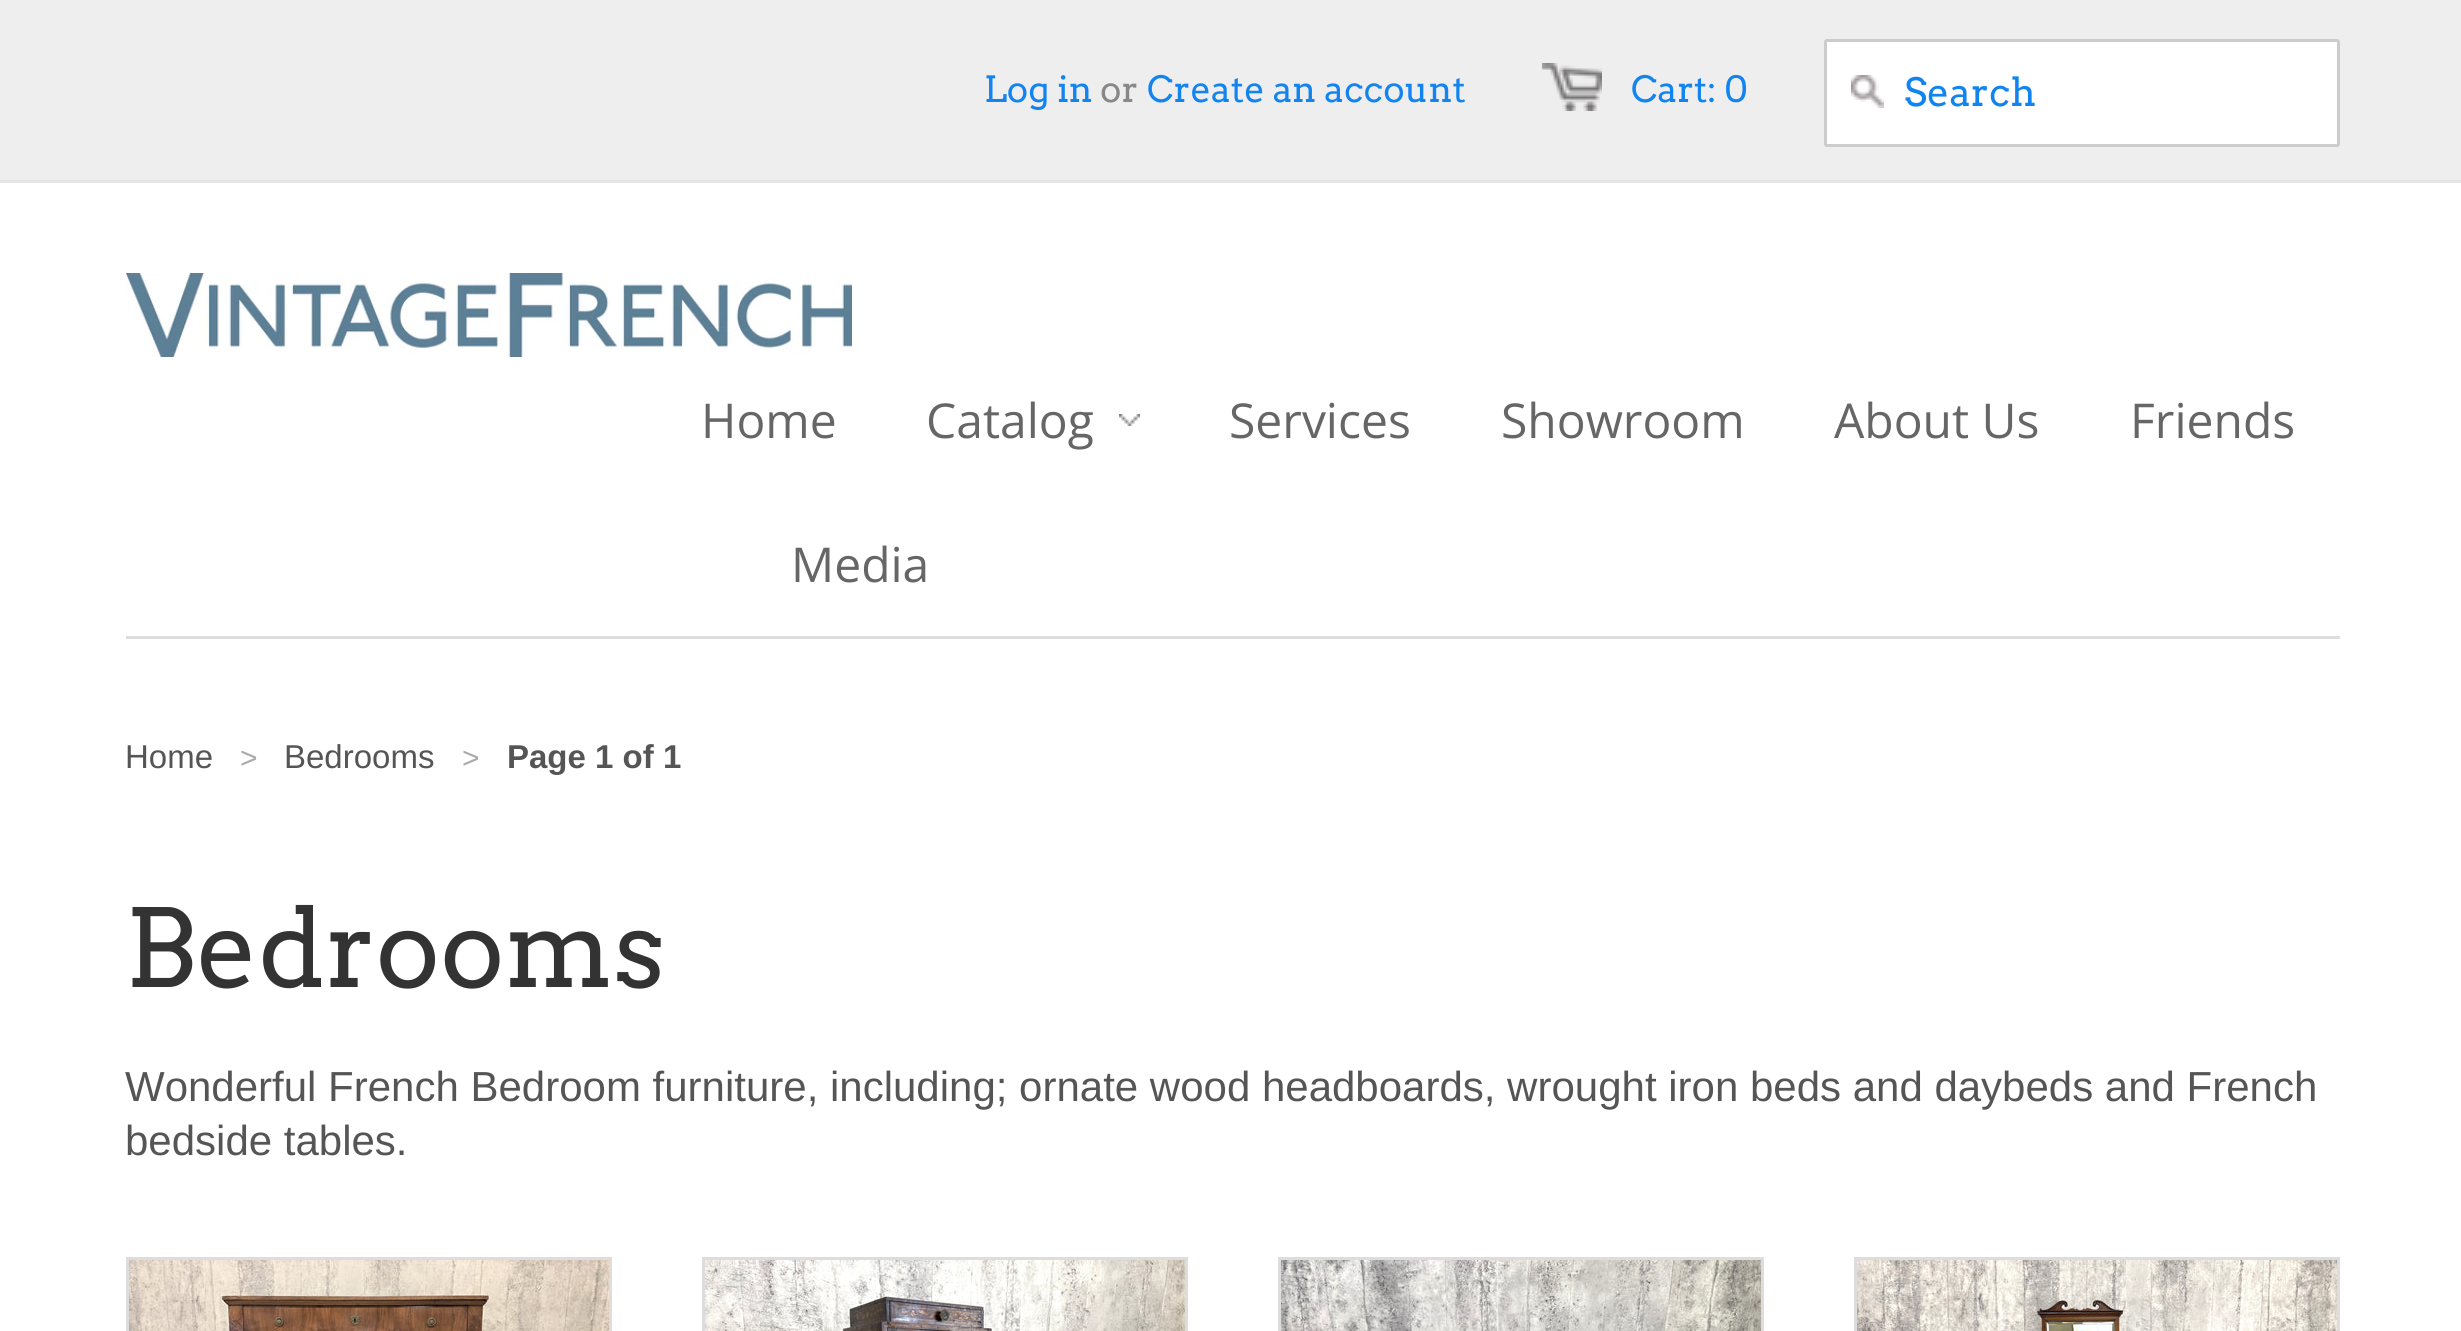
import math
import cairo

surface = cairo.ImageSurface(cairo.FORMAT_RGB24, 2461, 1331)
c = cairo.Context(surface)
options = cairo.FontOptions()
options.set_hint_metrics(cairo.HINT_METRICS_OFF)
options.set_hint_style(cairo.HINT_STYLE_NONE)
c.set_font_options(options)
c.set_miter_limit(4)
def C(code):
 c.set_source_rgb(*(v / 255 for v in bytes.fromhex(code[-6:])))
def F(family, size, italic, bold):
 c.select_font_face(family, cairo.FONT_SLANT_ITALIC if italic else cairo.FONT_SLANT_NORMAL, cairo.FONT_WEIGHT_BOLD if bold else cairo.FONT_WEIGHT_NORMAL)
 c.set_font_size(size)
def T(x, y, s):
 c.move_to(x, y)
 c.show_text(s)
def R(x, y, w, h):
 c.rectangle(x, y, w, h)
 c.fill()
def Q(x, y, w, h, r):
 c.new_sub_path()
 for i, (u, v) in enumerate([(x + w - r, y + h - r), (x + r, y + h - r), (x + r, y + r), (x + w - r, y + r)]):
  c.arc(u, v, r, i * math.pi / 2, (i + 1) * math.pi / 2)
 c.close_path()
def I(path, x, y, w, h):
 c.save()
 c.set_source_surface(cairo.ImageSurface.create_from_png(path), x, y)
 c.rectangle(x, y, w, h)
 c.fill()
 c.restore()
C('ffffff')
c.paint()
C('eeeeee')
R(0,0,2461,180)
C('e5e5e5')
R(0,180,2461,3)
F('Arvo',36,0,0)
C('1184f0')
T(984,102,'Log in')
C('888888')
T(1100,102,'or')
C('1184f0')
T(1147,102,'Create an account')
I('1.png',1542,63,60,48)
T(1631,102,'Cart: 0')
C('ffffff')
Q(1825.5,40.5,513,105,1.5)
c.fill_preserve()
C('cccccc')
c.set_line_width(3)
c.stroke()
I('2.png',1851,75,33,33)
F('Arvo',39,0,0)
C('1184f0')
T(1904,106,'Search')
C('dddddd')
R(126,636,2214,3)
I('3.png',126,273,726,84)
F('Open Sans',48,0,0)
C('666666')
T(701,438,'Home')
I('4.png',1119,414,21,12)
T(926,438,'Catalog')
T(1229,438,'Services')
T(1501,438,'Showroom')
T(1834,438,'About Us')
T(2130,438,'Friends')
T(791,582,'Media')
F('Liberation Sans',33,0,0)
C('555555')
T(125,768,'Home')
F('Liberation Sans',30,0,0)
C('aaaaaa')
T(240,768,'>')
F('Liberation Sans',33,0,0)
C('555555')
T(284,768,'Bedrooms')
F('Liberation Sans',30,0,0)
C('aaaaaa')
T(462,768,'>')
F('Liberation Sans',33,0,1)
C('555555')
T(507,768,'Page 1 of 1')
F('Arvo',108,0,0)
C('333333')
T(125,987,'Bedrooms')
F('Liberation Sans',42,0,0)
C('555555')
T(125,1101,'Wonderful French Bedroom furniture, including; ornate wood headboards, wrought iron beds and daybeds and French')
T(125,1155,'bedside tables.')
c.rectangle(127.5,1258.5,483,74)
C('dddddd')
c.stroke()
I('5.png',129,1260,480,71)
c.rectangle(703.5,1258.5,483,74)
c.stroke()
I('6.png',705,1260,480,71)
c.rectangle(1279.5,1258.5,483,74)
c.stroke()
I('7.png',1281,1260,480,71)
c.rectangle(1855.5,1258.5,483,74)
c.stroke()
I('8.png',1857,1260,480,71)
surface.write_to_png('o.png')
